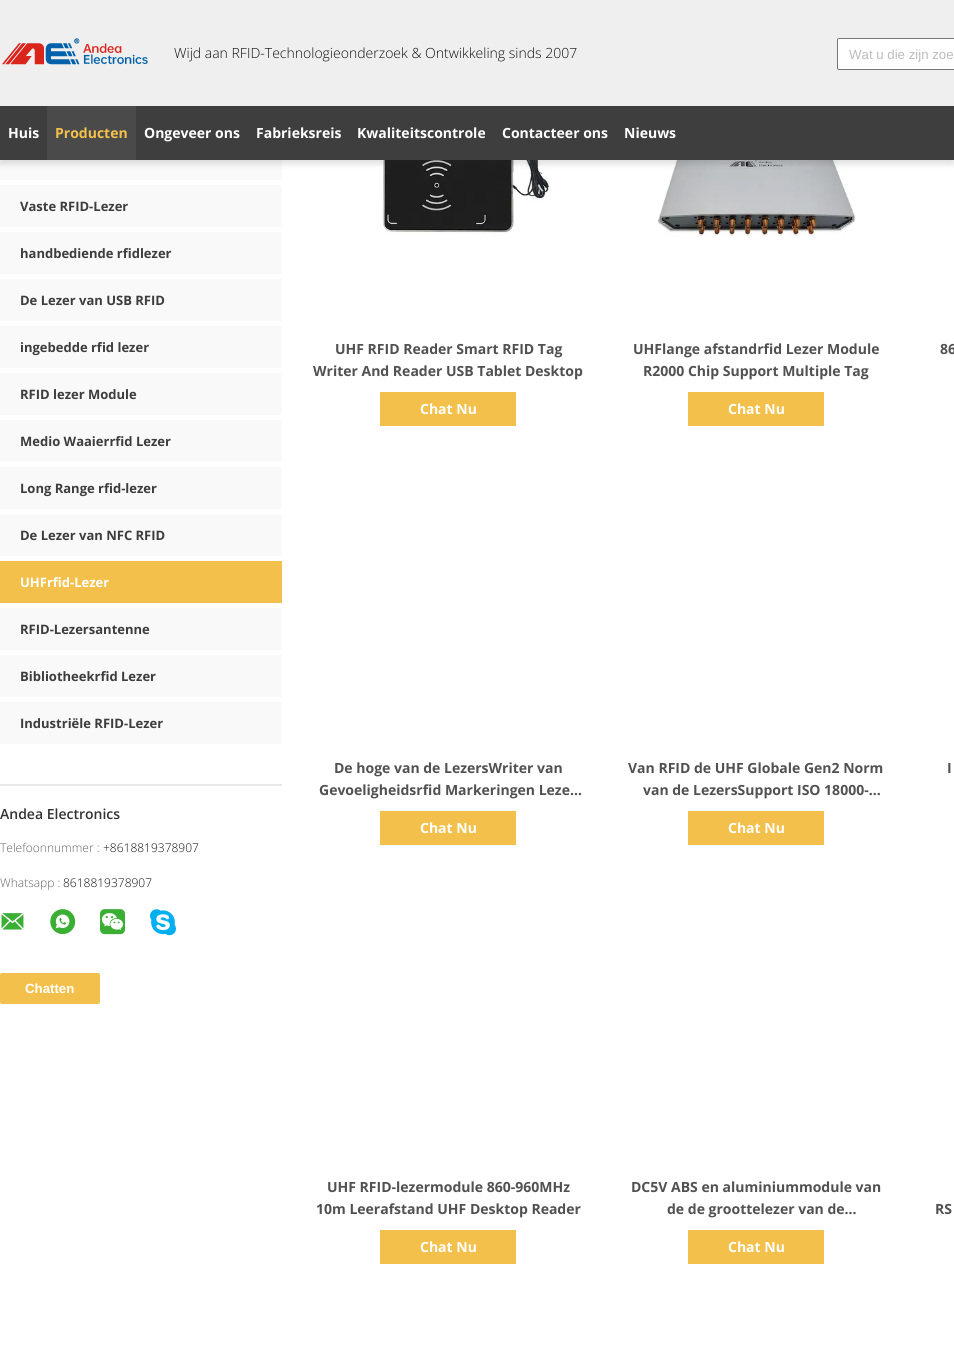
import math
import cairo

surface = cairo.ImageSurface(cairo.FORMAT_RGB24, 954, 1362)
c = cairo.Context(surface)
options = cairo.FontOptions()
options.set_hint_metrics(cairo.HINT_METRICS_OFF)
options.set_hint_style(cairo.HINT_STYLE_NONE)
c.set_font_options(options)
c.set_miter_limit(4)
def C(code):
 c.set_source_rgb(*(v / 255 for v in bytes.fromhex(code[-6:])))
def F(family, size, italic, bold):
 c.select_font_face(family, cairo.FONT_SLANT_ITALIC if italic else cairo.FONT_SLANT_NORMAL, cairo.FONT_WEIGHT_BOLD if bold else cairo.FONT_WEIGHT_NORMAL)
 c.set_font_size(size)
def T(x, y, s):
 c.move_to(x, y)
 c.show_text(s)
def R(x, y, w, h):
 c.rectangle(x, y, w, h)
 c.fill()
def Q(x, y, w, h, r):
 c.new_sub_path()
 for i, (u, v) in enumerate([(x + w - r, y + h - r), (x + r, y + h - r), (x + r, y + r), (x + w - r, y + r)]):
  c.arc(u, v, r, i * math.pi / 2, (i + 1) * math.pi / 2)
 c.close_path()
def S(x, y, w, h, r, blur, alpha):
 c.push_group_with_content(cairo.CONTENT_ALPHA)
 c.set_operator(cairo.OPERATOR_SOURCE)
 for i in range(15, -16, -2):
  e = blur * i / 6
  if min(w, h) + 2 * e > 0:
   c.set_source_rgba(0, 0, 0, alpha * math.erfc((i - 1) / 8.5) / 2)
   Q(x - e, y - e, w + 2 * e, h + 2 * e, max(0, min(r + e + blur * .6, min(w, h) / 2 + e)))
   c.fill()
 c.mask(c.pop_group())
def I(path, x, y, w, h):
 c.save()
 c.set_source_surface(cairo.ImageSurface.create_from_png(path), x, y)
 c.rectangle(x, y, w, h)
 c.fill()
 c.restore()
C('ffffff')
c.paint()
C('efefef')
R(0,0,954,106)
I('1.png',2,38,146,27)
F('Open Sans Light',14,0,0)
C('111111')
T(174,58,'Wijd aan RFID-Technologieonderzoek & Ontwikkeling sinds 2007')
C('ffffff')
Q(837.5,38.5,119,31,1.5)
c.fill_preserve()
C('767676')
c.set_line_width(1)
c.stroke()
F('Liberation Sans',13.25,0,0)
C('bcbcbc')
T(849,59,'Wat u die zijn zoe')
C('f9f9f9')
R(0,160,282,20)
I('6.png',324,160,227,75)
I('7.png',632,160,224,77)
C('292929')
S(0,110,954,54,0,3,.15)
C('3e3e3e')
R(0,106,954,54)
F('Open Sans',14,0,1)
C('ffffff')
T(8,138,'Huis')
C('4a4a4a')
R(47,106,89,54)
C('f3c14b')
T(55,138,'Producten')
C('ffffff')
T(144,138,'Ongeveer ons')
T(256,138,'Fabrieksreis')
T(357,138,'Kwaliteitscontrole')
T(502,138,'Contacteer ons')
T(624,138,'Nieuws')
C('e9e9e9')
R(0,784,282,2)
C('f9f9f9')
R(0,185,282,42)
F('Open Sans',13,0,1)
C('3d3d3d')
T(20,211,'Vaste RFID-Lezer')
C('f9f9f9')
R(0,232,282,42)
C('3d3d3d')
T(20,258,'handbediende rfidlezer')
C('f9f9f9')
R(0,279,282,42)
C('3d3d3d')
T(20,305,'De Lezer van USB RFID')
C('f9f9f9')
R(0,326,282,42)
C('3d3d3d')
T(20,352,'ingebedde rfid lezer')
C('f9f9f9')
R(0,373,282,42)
C('3d3d3d')
T(20,399,'RFID lezer Module')
C('f9f9f9')
R(0,420,282,42)
C('3d3d3d')
T(20,446,'Medio Waaierrfid Lezer')
C('f9f9f9')
R(0,467,282,42)
C('3d3d3d')
T(20,493,'Long Range rfid-lezer')
C('f9f9f9')
R(0,514,282,42)
C('3d3d3d')
T(20,540,'De Lezer van NFC RFID')
C('f3c14b')
R(0,561,282,42)
C('ffffff')
T(20,587,'UHFrfid-Lezer')
C('f9f9f9')
R(0,608,282,42)
C('3d3d3d')
T(20,634,'RFID-Lezersantenne')
C('f9f9f9')
R(0,655,282,42)
C('3d3d3d')
T(20,681,'Bibliotheekrfid Lezer')
C('f9f9f9')
R(0,702,282,42)
C('3d3d3d')
T(20,728,'Industriële RFID-Lezer')
F('Open Sans SemiBold',14,0,0)
C('333333')
T(0,819,'Andea Electronics')
F('Open Sans Light',12,0,0)
C('666666')
T(0,852,'Telefoonnummer :')
C('111111')
T(103,852,'+8618819378907')
C('666666')
T(0,887,'Whatsapp :')
C('111111')
T(63,887,'8618819378907')
I('2.png',1,913,23,17)
I('3.png',50,909,26,26)
I('4.png',100,909,25,26)
I('5.png',150,909,26,27)
C('f3c14b')
Q(0,973,100,31,2)
c.fill()
F('Liberation Sans',13.25,0,1)
C('ffffff')
T(25,993,'Chatten')
F('Open Sans',14,0,1)
C('515151')
T(335,354,'UHF RFID Reader Smart RFID Tag')
T(313,376,'Writer And Reader USB Tablet Desktop')
C('f3c14b')
R(380,392,136,34)
C('ffffff')
T(420,414,'Chat Nu')
C('515151')
T(633,354,'UHFlange afstandrfid Lezer Module')
T(643,376,'R2000 Chip Support Multiple Tag')
C('f3c14b')
R(688,392,136,34)
C('ffffff')
T(728,414,'Chat Nu')
C('515151')
T(940,354,'86')
T(334,773,'De hoge van de LezersWriter van')
T(319,795,'Gevoeligheidsrfid Markeringen Leze…')
C('f3c14b')
R(380,811,136,34)
C('ffffff')
T(420,833,'Chat Nu')
C('515151')
T(628,773,'Van RFID de UHF Globale Gen2 Norm')
T(643,795,'van de LezersSupport ISO 18000-…')
C('f3c14b')
R(688,811,136,34)
C('ffffff')
T(728,833,'Chat Nu')
C('515151')
T(947,773,'I')
T(327,1192,'UHF RFID-lezermodule 860-960MHz')
T(316,1214,'10m Leerafstand UHF Desktop Reader')
C('f3c14b')
R(380,1230,136,34)
C('ffffff')
T(420,1252,'Chat Nu')
C('515151')
T(631,1192,'DC5V ABS en aluminiummodule van')
T(667,1214,'de de groottelezer van de…')
C('f3c14b')
R(688,1230,136,34)
C('ffffff')
T(728,1252,'Chat Nu')
C('515151')
T(935,1214,'RS')
surface.write_to_png('o.png')
